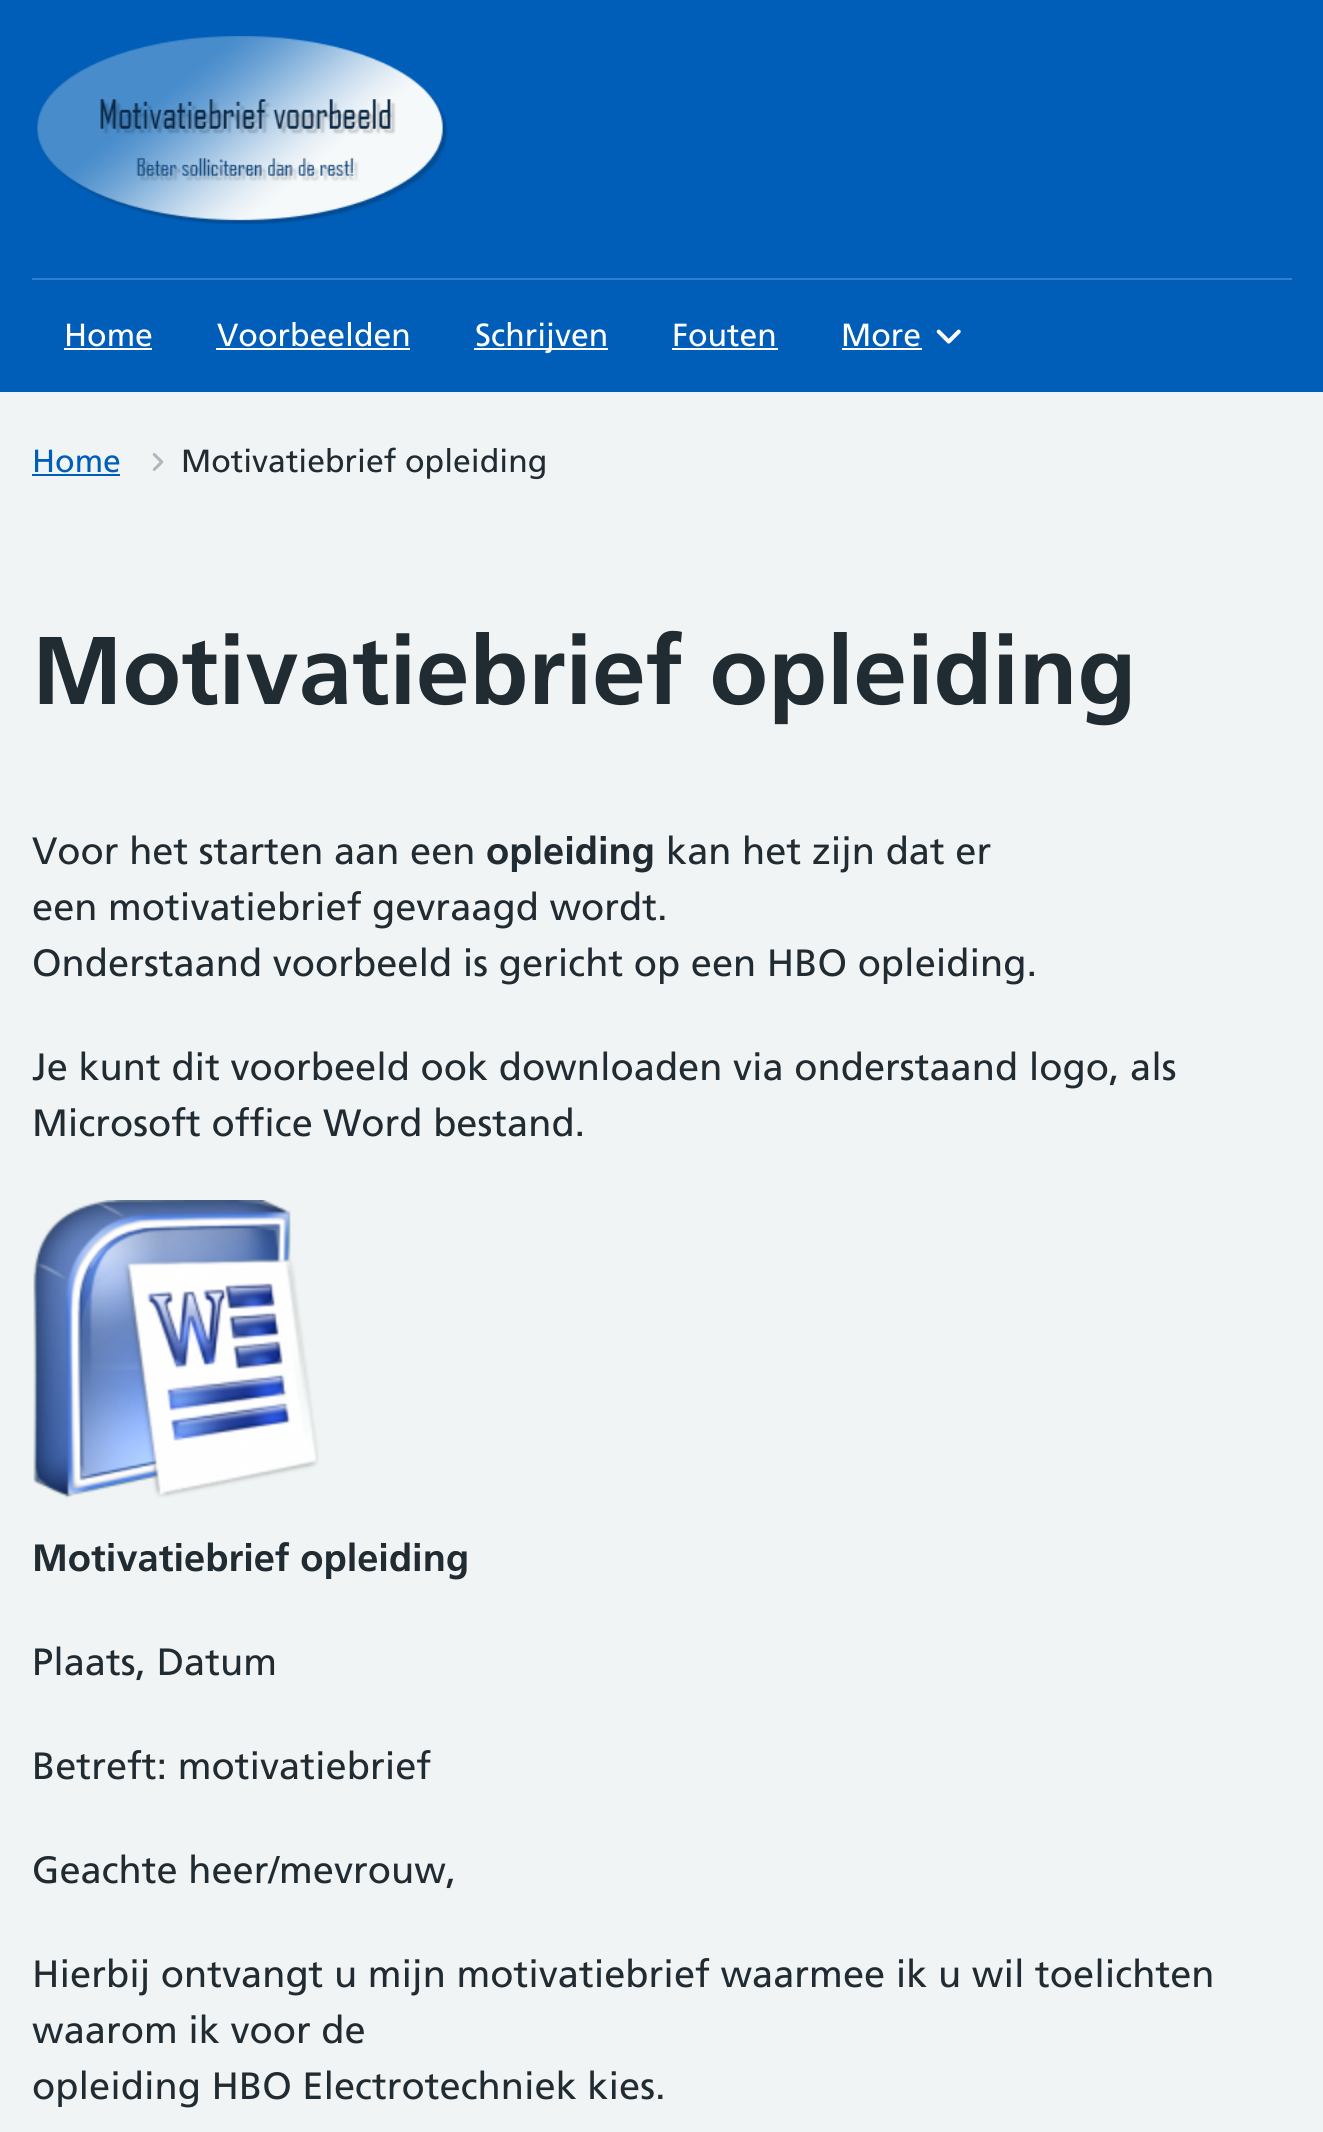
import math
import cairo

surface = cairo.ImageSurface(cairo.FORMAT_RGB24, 1323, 2132)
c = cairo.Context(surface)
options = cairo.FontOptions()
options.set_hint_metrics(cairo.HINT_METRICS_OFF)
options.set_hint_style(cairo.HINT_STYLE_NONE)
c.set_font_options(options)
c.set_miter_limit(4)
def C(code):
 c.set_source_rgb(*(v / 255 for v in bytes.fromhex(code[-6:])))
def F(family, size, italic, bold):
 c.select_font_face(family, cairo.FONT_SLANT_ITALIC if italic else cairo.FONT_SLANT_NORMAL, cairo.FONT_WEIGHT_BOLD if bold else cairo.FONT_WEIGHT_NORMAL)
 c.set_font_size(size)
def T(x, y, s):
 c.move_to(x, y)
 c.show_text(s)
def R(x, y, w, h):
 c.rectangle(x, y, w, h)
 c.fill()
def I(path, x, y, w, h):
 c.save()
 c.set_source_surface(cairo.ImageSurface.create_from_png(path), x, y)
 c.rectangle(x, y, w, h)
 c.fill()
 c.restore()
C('f0f4f5')
c.paint()
C('005eb8')
R(0,0,1323,392)
C('337ec6')
R(32,278,1260,2)
I('1.png',37,35,411,189)
F('Frutiger',32,0,0)
C('ffffff')
T(64,346,'Home')
R(64,348,88,2)
T(217,346,'Voorbeelden')
R(216,348,194,2)
R(474,348,134,2)
T(475,346,'Schrijven')
T(672,346,'Fouten')
R(672,348,106,2)
T(841,346,'More')
R(842,348,80,2)
I('2.png',936,329,25,15)
C('005eb8')
T(32,472,'Home')
R(32,474,88,2)
I('3.png',152,453,12,18)
C('212b32')
T(181,472,'Motivatiebrief opleiding')
F('Frutiger',96,0,1)
T(32,704,'Motivatiebrief opleiding')
F('Frutiger',38,0,0)
T(32,864,'Voor het starten aan een')
F('Frutiger',38,0,1)
T(486,864,'opleiding')
F('Frutiger',38,0,0)
T(666,864,'kan het zijn dat er')
T(32,920,'een motivatiebrief gevraagd wordt.')
T(32,976,'Onderstaand voorbeeld is gericht op een HBO opleiding.')
T(32,1080,'Je kunt dit voorbeeld ook downloaden via onderstaand logo, als')
T(32,1136,'Microsoft office Word bestand.')
I('4.png',33,1200,286,298)
F('Frutiger',38,0,1)
T(32,1571,'Motivatiebrief opleiding')
F('Frutiger',38,0,0)
T(32,1675,'Plaats, Datum')
T(32,1779,'Betreft: motivatiebrief')
T(32,1883,'Geachte heer/mevrouw,')
T(32,1987,'Hierbij ontvangt u mijn motivatiebrief waarmee ik u wil toelichten')
T(32,2043,'waarom ik voor de')
T(32,2099,'opleiding HBO Electrotechniek kies.')
surface.write_to_png('o.png')
